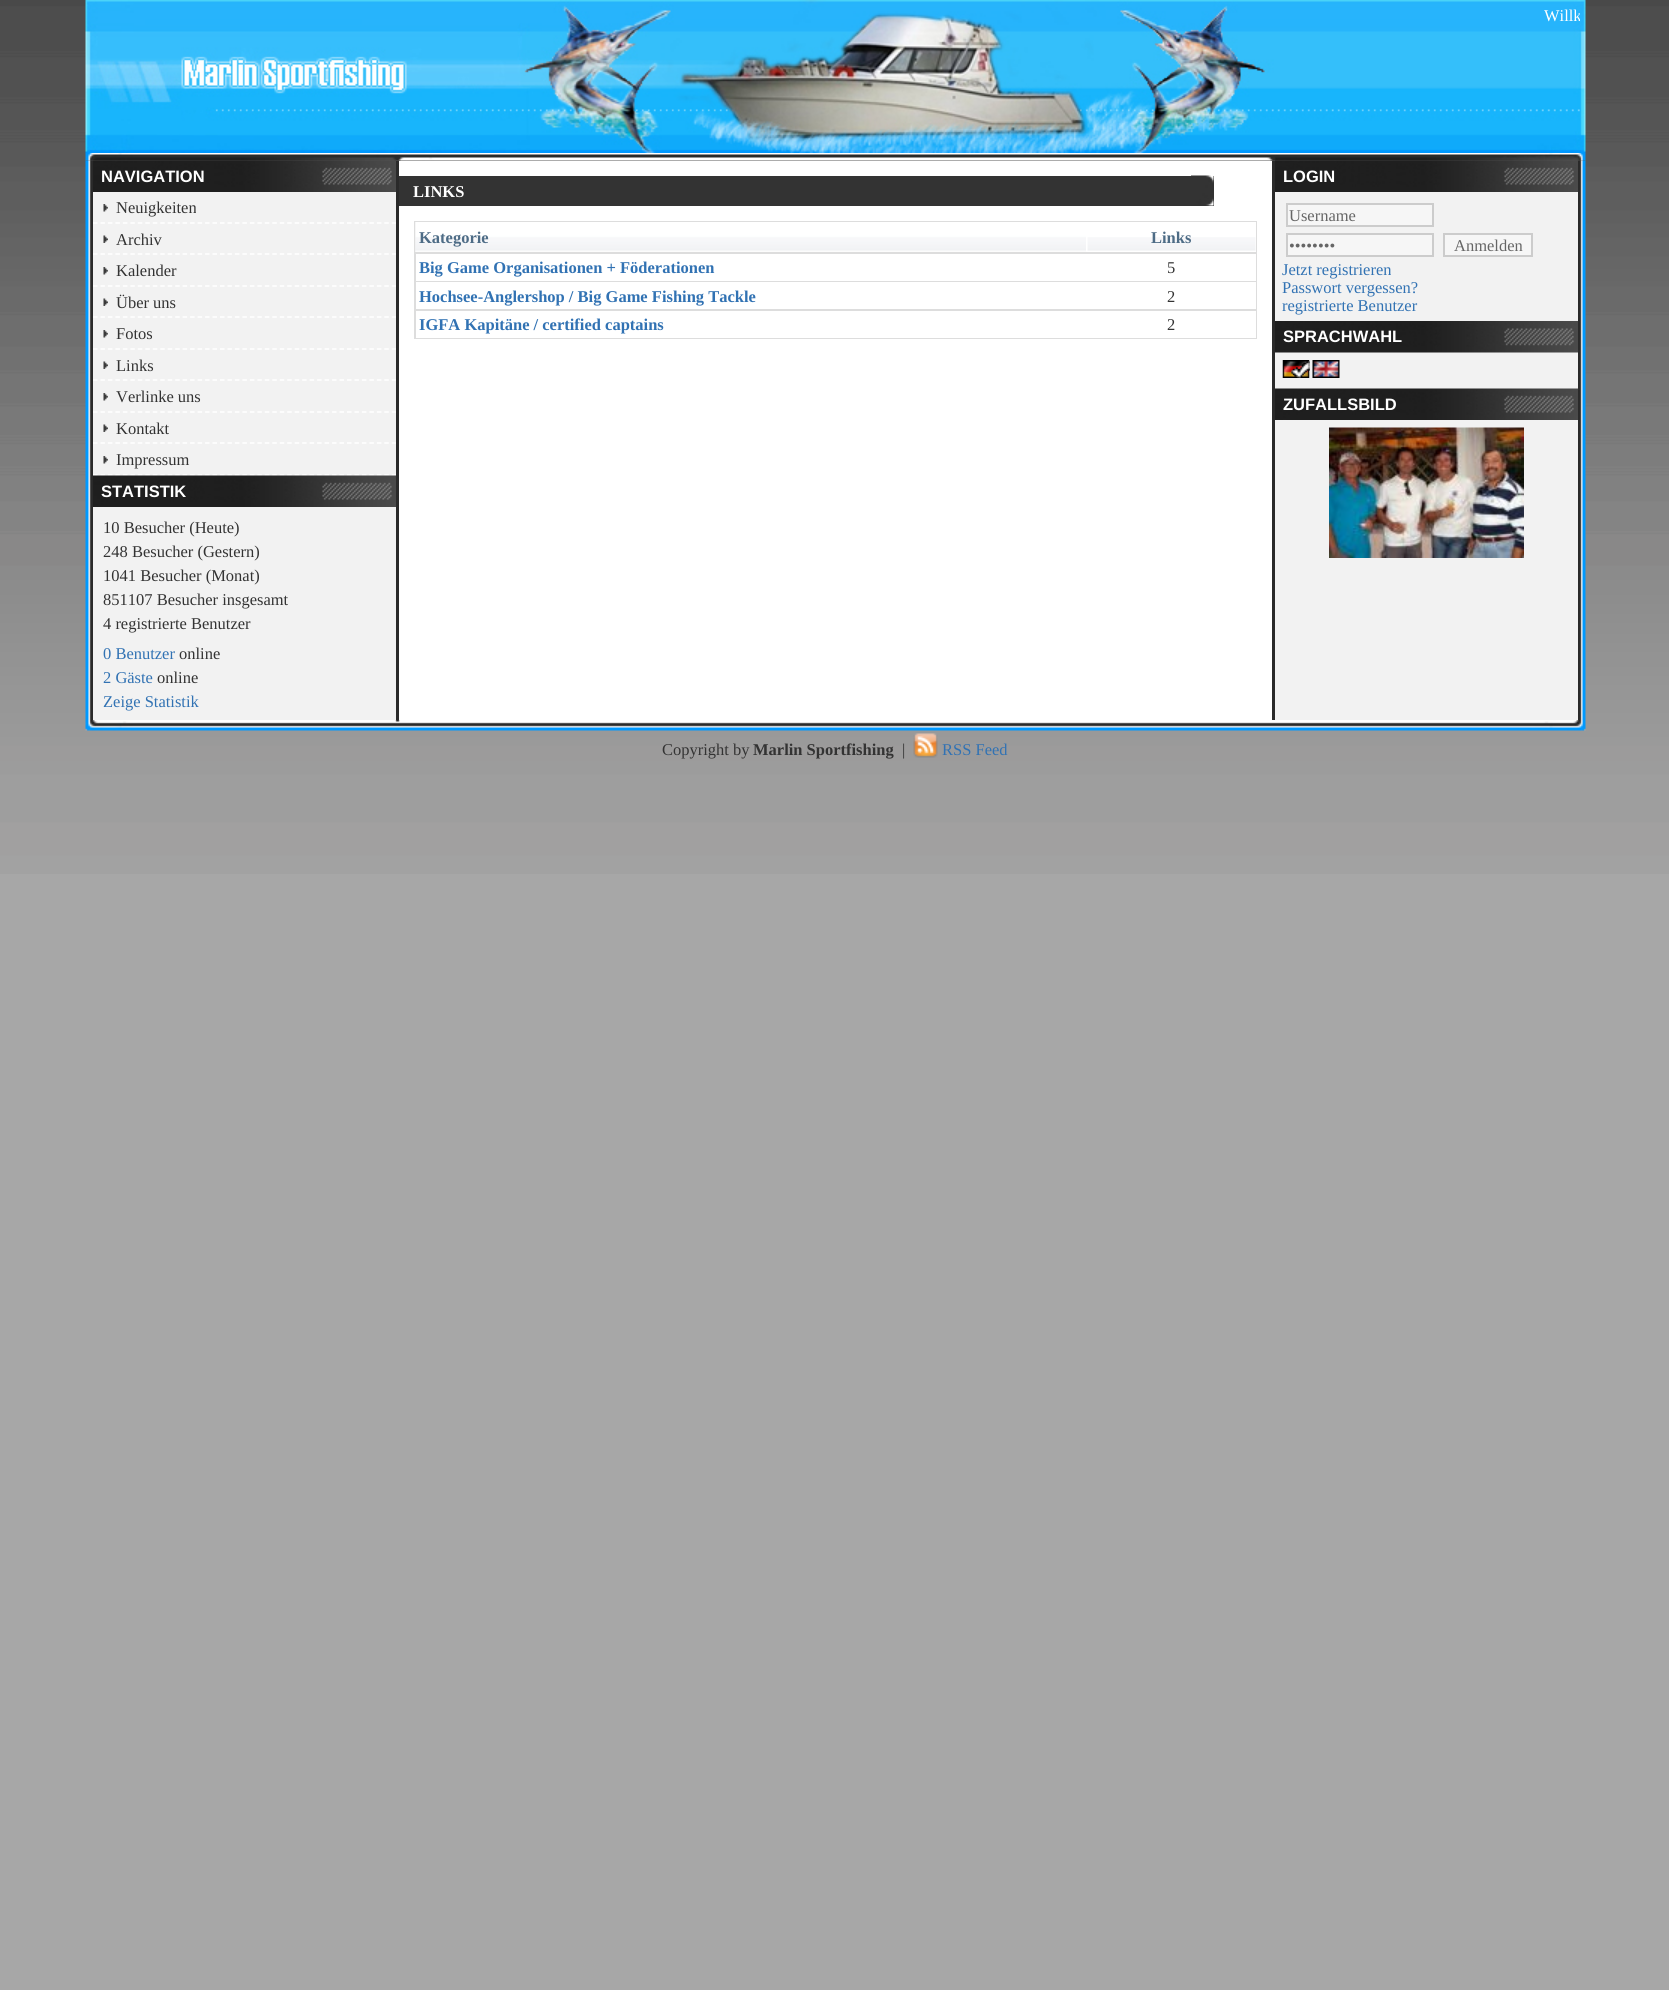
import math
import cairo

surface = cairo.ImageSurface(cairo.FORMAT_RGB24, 1669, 1990)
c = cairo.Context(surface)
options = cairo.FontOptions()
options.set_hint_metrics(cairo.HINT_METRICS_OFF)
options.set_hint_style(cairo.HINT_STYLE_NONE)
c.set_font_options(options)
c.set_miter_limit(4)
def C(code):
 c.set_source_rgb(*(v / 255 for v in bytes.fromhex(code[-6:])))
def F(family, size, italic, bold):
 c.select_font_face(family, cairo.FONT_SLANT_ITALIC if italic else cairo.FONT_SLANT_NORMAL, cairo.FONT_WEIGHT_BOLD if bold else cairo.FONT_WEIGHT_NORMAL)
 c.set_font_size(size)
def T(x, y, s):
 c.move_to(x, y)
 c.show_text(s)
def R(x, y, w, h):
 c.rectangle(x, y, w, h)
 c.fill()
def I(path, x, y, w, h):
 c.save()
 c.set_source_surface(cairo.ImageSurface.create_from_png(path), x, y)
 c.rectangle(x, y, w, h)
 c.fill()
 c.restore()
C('a7a7a7')
c.paint()
I('1.png',0,0,1669,874)
I('2.png',85,0,1501,153)
c.save()
c.rectangle(92,6,1488,18)
c.clip()
F('Liberation Serif',16.5,0,0)
C('ffffff')
T(1544,21,'Willk')
c.restore()
I('4.png',85,160,8,560)
I('5.png',93,160,303,32)
I('12.png',1275,160,303,32)
I('19.png',1578,160,8,560)
I('3.png',85,153,1501,8)
C('f2f2f2')
R(93,192,303,528)
F('Liberation Sans',16.5,0,1)
C('ffffff')
T(101,182,'NAVIGATION')
I('6.png',103,204,5,8)
c.new_path()
c.move_to(93,223)
c.line_to(396,223)
c.set_line_width(1.5)
c.set_dash([4.5,2.97])
c.stroke()
F('Liberation Serif',16.5,0,0)
C('333333')
T(116,213,'Neuigkeiten')
I('7.png',103,235,5,8)
c.new_path()
c.move_to(93,254)
c.line_to(396,254)
C('ffffff')
c.stroke()
C('333333')
T(116,245,'Archiv')
I('6.png',103,267,5,8)
c.new_path()
c.move_to(93,286)
c.line_to(396,286)
C('ffffff')
c.stroke()
C('333333')
T(116,276,'Kalender')
I('7.png',103,298,5,8)
c.new_path()
c.move_to(93,317)
c.line_to(396,317)
C('ffffff')
c.stroke()
C('333333')
T(116,308,'Über uns')
I('6.png',103,330,5,8)
c.new_path()
c.move_to(93,349)
c.line_to(396,349)
C('ffffff')
c.stroke()
C('333333')
T(116,339,'Fotos')
I('7.png',103,361,5,8)
c.new_path()
c.move_to(93,380)
c.line_to(396,380)
C('ffffff')
c.stroke()
C('333333')
T(116,371,'Links')
I('6.png',103,393,5,8)
c.new_path()
c.move_to(93,412)
c.line_to(396,412)
C('ffffff')
c.stroke()
C('333333')
T(116,402,'Verlinke uns')
I('7.png',103,424,5,8)
c.new_path()
c.move_to(93,443)
c.line_to(396,443)
C('ffffff')
c.stroke()
C('333333')
T(116,434,'Kontakt')
I('6.png',103,456,5,8)
c.new_path()
c.move_to(93,475)
c.line_to(396,475)
C('ffffff')
c.stroke()
C('333333')
T(116,465,'Impressum')
I('8.png',93,475,303,32)
F('Liberation Sans',16.5,0,1)
C('ffffff')
T(101,497,'STATISTIK')
F('Liberation Serif',16.5,0,0)
C('333333')
T(103,533,'10 Besucher (Heute)')
T(103,557,'248 Besucher (Gestern)')
T(103,581,'1041 Besucher (Monat)')
T(103,605,'851107 Besucher insgesamt')
T(103,629,'4 registrierte Benutzer')
C('3172b3')
T(103,659,'0 Benutzer')
C('333333')
T(179,659,'online')
C('3172b3')
T(103,683,'2 Gäste')
C('333333')
T(157,683,'online')
C('3172b3')
T(103,707,'Zeige Statistik')
C('2a2a2a')
R(396,161,3,559)
C('ffffff')
R(399,161,873,559)
C('333333')
R(399,176,815,30)
I('9.png',1191,175,23,31)
F('Liberation Serif',16.5,0,1)
C('ffffff')
T(413,197,'LINKS')
C('dddddd')
R(414,221,843,118)
C('ffffff')
R(1086,222,170,30)
I('10.png',415,222,671,30)
C('4e6c86')
T(419,243,'Kategorie')
I('11.png',1087,237,169,14)
T(1151,243,'Links')
C('ffffff')
R(416,254,840,27)
C('3172b3')
T(419,273,'Big Game Organisationen + Föderationen')
F('Liberation Serif',16.5,0,0)
C('333333')
T(1167,273,'5')
C('ffffff')
R(416,282,840,27)
F('Liberation Serif',16.5,0,1)
C('3172b3')
T(419,302,'Hochsee-Anglershop / Big Game Fishing Tackle')
F('Liberation Serif',16.5,0,0)
C('333333')
T(1167,302,'2')
C('ffffff')
R(416,311,840,27)
F('Liberation Serif',16.5,0,1)
C('3172b3')
T(419,330,'IGFA Kapitäne / certified captains')
F('Liberation Serif',16.5,0,0)
C('333333')
T(1167,330,'2')
C('2a2a2a')
R(1272,161,3,559)
C('f2f2f2')
R(1275,192,303,528)
F('Liberation Sans',16.5,0,1)
C('ffffff')
T(1283,182,'LOGIN')
C('f6f6f6')
c.rectangle(1287,204,146,22)
c.fill_preserve()
C('cccccc')
c.set_line_width(2)
c.set_dash([])
c.stroke()
F('Liberation Serif',16.5,0,0)
C('666666')
T(1289,221,'Username')
C('f6f6f6')
c.rectangle(1287,234,146,22)
c.fill_preserve()
C('cccccc')
c.stroke()
C('666666')
T(1289,251,'••••••••')
C('f6f6f6')
c.rectangle(1444,234,88,22)
c.fill_preserve()
C('cccccc')
c.stroke()
C('666666')
T(1454,251,'Anmelden')
C('3172b3')
T(1282,275,'Jetzt registrieren')
T(1282,293,'Passwort vergessen?')
T(1282,311,'registrierte Benutzer')
I('13.png',1275,321,303,32)
F('Liberation Sans',16.5,0,1)
C('ffffff')
T(1283,342,'SPRACHWAHL')
I('14.png',1282,360,28,18)
I('15.png',1312,360,28,18)
I('16.png',1291,361,19,17)
I('17.png',1275,388,303,32)
T(1283,410,'ZUFALLSBILD')
I('18.png',1329,427,195,131)
I('20.png',85,720,1501,11)
F('Liberation Serif',16.5,0,0)
C('333333')
T(662,755,'Copyright by')
F('Liberation Serif',16.5,0,1)
T(753,755,'Marlin Sportfishing')
F('Liberation Serif',16.5,0,0)
T(902,755,'|')
I('21.png',913,733,25,25)
C('3172b3')
T(942,755,'RSS Feed')
surface.write_to_png('o.png')
